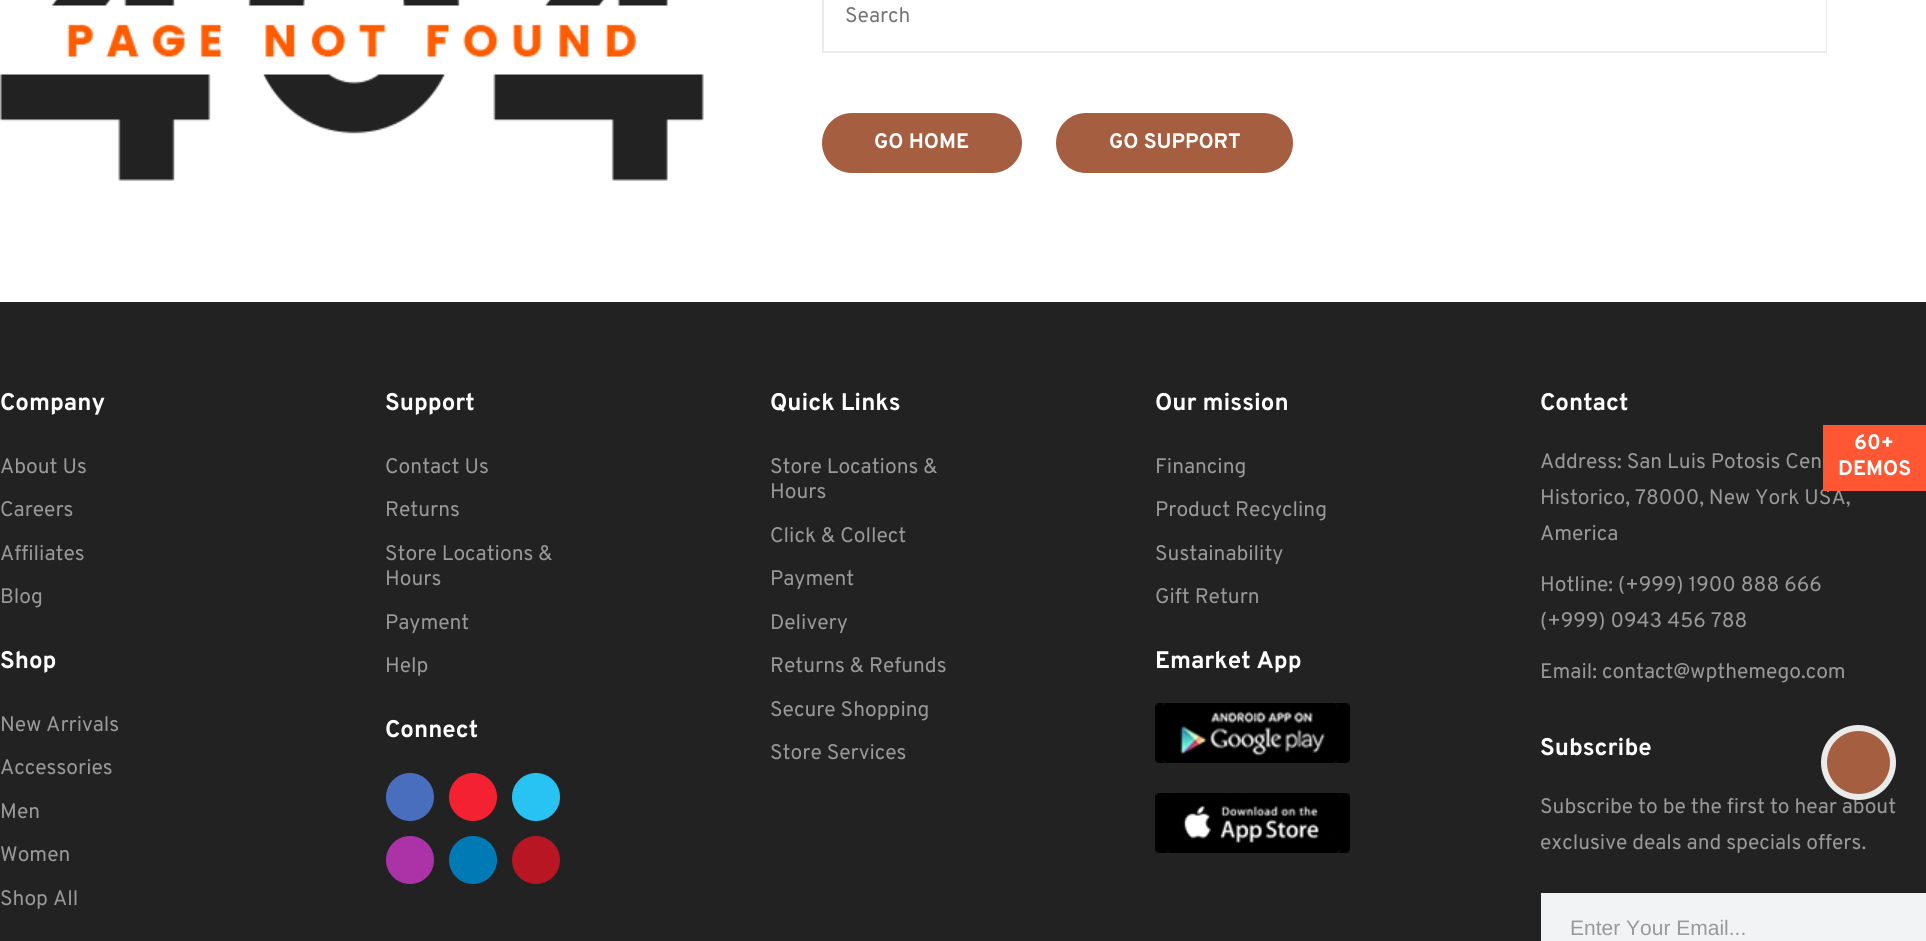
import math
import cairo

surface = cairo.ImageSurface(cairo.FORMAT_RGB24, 1926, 941)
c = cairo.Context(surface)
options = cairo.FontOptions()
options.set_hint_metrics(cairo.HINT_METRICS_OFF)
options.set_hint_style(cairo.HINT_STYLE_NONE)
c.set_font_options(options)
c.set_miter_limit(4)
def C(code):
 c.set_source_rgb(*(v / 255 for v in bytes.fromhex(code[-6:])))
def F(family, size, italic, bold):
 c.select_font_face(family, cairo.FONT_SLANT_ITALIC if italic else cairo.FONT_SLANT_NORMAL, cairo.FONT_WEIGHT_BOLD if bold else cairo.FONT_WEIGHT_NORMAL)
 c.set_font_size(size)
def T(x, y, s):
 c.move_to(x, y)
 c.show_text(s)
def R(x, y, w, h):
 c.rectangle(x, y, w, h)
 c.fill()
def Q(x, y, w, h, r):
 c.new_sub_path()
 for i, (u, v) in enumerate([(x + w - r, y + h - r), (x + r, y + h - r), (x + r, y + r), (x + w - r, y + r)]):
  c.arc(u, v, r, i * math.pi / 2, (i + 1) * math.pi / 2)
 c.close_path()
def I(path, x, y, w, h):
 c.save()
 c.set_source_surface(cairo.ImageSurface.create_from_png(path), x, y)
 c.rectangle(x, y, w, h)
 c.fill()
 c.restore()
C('ffffff')
c.paint()
I('1.png',0,0,704,181)
c.rectangle(823,-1,1003,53)
C('ebebeb')
c.stroke()
C('ffffff')
R(1825,0,1,51)
F('Overpass',21,0,0)
C('757575')
T(845,22,'Search')
C('a55e40')
Q(822,113,200,60,30)
c.fill()
F('Overpass',21,0,1)
C('ffffff')
T(874,148,'GO HOME')
C('a55e40')
Q(1056,113,237,60,30)
c.fill()
C('ffffff')
T(1109,148,'GO SUPPORT')
C('222222')
R(0,302,1926,639)
F('Overpass',24,0,1)
C('ffffff')
T(0,410,'Company')
F('Overpass',21,0,0)
C('999999')
T(0,473,'About Us')
T(0,516,'Careers')
T(0,560,'Affiliates')
T(0,603,'Blog')
F('Overpass',24,0,1)
C('ffffff')
T(0,668,'Shop')
F('Overpass',21,0,0)
C('999999')
T(0,731,'New Arrivals')
T(0,774,'Accessories')
T(0,818,'Men')
T(0,861,'Women')
T(0,905,'Shop All')
F('Overpass',24,0,1)
C('ffffff')
T(385,410,'Support')
F('Overpass',21,0,0)
C('999999')
T(385,473,'Contact Us')
T(385,516,'Returns')
T(385,560,'Store Locations &')
T(385,585,'Hours')
T(385,629,'Payment')
T(385,672,'Help')
F('Overpass',24,0,1)
C('ffffff')
T(385,737,'Connect')
C('496ebe')
c.new_path()
c.arc(410,797,24,0,2 * math.pi)
c.fill()
C('f42132')
c.arc(473,797,24,0,2 * math.pi)
c.fill()
C('28c3f3')
c.arc(536,797,24,0,2 * math.pi)
c.fill()
C('ab33a7')
c.arc(410,860,24,0,2 * math.pi)
c.fill()
C('007ab5')
c.arc(473,860,24,0,2 * math.pi)
c.fill()
C('b81623')
c.arc(536,860,24,0,2 * math.pi)
c.fill()
C('ffffff')
T(770,410,'Quick Links')
F('Overpass',21,0,0)
C('999999')
T(770,473,'Store Locations &')
T(770,498,'Hours')
T(770,542,'Click & Collect')
T(770,585,'Payment')
T(770,629,'Delivery')
T(770,672,'Returns & Refunds')
T(770,716,'Secure Shopping')
T(770,759,'Store Services')
F('Overpass',24,0,1)
C('ffffff')
T(1155,410,'Our mission')
F('Overpass',21,0,0)
C('999999')
T(1155,473,'Financing')
T(1155,516,'Product Recycling')
T(1155,560,'Sustainability')
T(1155,603,'Gift Return')
F('Overpass',24,0,1)
C('ffffff')
T(1155,668,'Emarket App')
I('2.png',1155,703,195,60)
I('3.png',1155,793,195,60)
T(1540,410,'Contact')
F('Overpass',21,0,0)
C('999999')
T(1540,468,'Address: San Luis Potosis Cen')
T(1540,504,'Historico, 78000, New York USA,')
T(1540,540,'America')
T(1540,591,'Hotline: (+999) 1900 888 666')
T(1540,627,'(+999) 0943 456 788')
T(1540,678,'Email: contact@wpthemego.com')
F('Overpass',24,0,1)
C('ffffff')
T(1540,755,'Subscribe')
F('Overpass',21,0,0)
C('999999')
T(1540,813,'Subscribe to be the first to hear about')
T(1540,849,'exclusive deals and specials offers.')
C('f2f3f5')
R(1541,893,385,48)
F('Liberation Sans',21,0,0)
C('999999')
T(1570,935,'Enter Your Email...')
C('ff5733')
R(1823,425,103,66)
F('Overpass',21,0,1)
C('ffffff')
T(1854,449,'60+')
T(1838,475,'DEMOS')
C('a55e40')
c.new_path()
c.arc(1858.5,762.5,34.5,0,2 * math.pi)
c.fill_preserve()
C('ebebeb')
c.set_line_width(6)
c.stroke()
surface.write_to_png('o.png')
